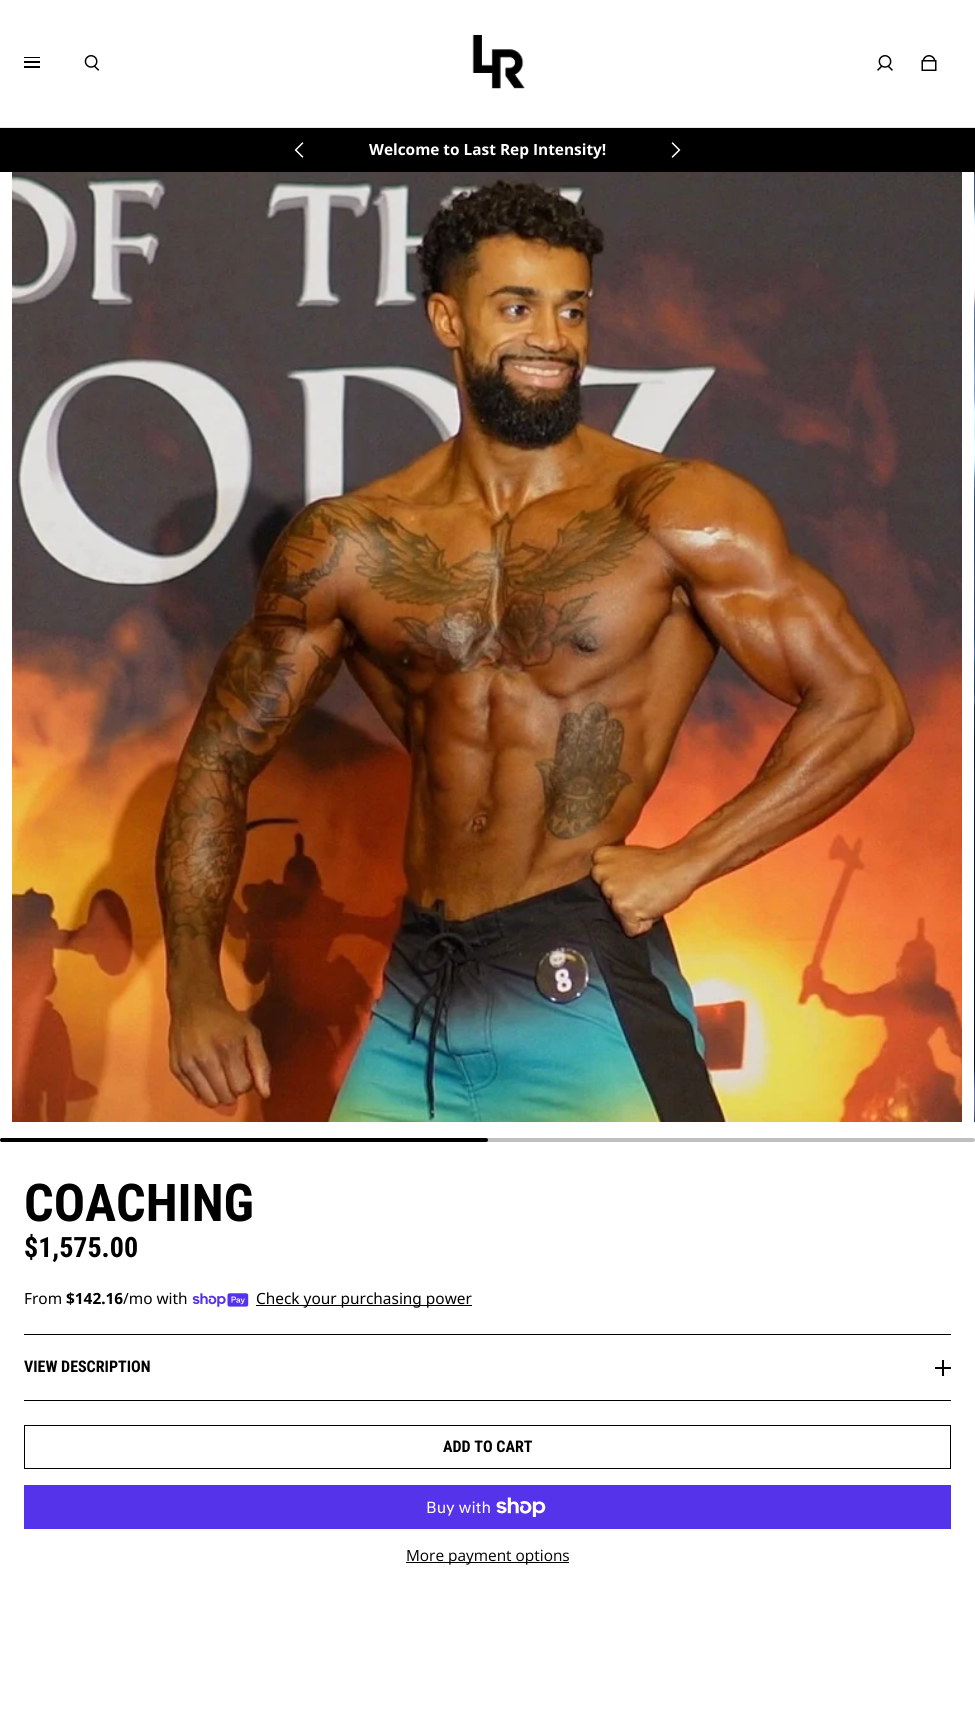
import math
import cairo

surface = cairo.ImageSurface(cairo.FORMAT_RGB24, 975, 1714)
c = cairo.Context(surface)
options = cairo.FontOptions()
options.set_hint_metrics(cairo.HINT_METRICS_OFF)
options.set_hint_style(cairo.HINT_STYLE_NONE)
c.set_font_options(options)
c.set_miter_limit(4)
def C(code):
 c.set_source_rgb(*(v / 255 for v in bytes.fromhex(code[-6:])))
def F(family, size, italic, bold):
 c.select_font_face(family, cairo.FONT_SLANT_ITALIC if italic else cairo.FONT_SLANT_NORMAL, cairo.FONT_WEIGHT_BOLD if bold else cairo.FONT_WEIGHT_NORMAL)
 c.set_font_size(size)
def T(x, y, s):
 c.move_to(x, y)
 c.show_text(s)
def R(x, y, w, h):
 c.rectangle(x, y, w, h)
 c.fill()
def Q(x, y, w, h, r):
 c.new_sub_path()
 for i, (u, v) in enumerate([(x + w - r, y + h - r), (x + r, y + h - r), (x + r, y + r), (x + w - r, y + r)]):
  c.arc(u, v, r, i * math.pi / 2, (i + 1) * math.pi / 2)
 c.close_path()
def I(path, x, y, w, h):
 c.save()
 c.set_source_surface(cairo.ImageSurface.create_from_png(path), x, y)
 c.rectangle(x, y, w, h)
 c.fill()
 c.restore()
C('ffffff')
c.paint()
C('e6e6e6')
R(0,127,975,1)
C('000000')
R(24,57,16,1)
R(24,61,16,2)
R(24,66,16,2)
I('1.png',84,55,16,16)
I('2.png',472,34,53,55)
I('3.png',877,55,16,16)
I('4.png',921,55,16,16)
R(0,128,975,44)
I('5.png',294,142,10,16)
F('Open Sans',15.4,0,1)
C('ffffff')
T(369,155,'Welcome to Last Rep Intensity!')
I('6.png',671,142,10,16)
I('7.png',12,172,950,950)
I('8.png',974,172,1,950)
C('bfbfbf')
Q(0,1138,975,4,2)
c.fill()
C('000000')
Q(0,1138,488,4,2)
c.fill()
F('Roboto Condensed',52,0,1)
T(24,1221,'COACHING')
F('Roboto Condensed',28,0,1)
T(24,1257,'$1,575.00')
F('Noto Sans',15.4,0,0)
T(24,1304,'From')
F('Noto Sans',15.4,0,1)
T(66,1304,'$142.16')
F('Noto Sans',15.4,0,0)
T(123,1304,'/mo with')
I('9.png',192,1293,57,14)
R(256,1305,216,1)
T(256,1304,'Check your purchasing power')
R(24,1334,927,1)
R(24,1400,927,1)
F('Roboto Condensed',16,0,1)
T(24,1372,'VIEW DESCRIPTION')
R(935,1367,16,2)
R(942,1360,2,16)
c.rectangle(24.5,1425.5,926,43)
c.set_line_width(1)
c.stroke()
T(443,1452,'ADD TO CART')
C('5433eb')
R(24,1485,927,44)
F('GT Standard',16,0,0)
C('ffffff')
T(426,1513,'Buy with')
I('10.png',496,1497,50,20)
C('000000')
R(406,1562,163,1)
F('Open Sans',15.4,0,0)
T(406,1561,'More payment options')
surface.write_to_png('o.png')
